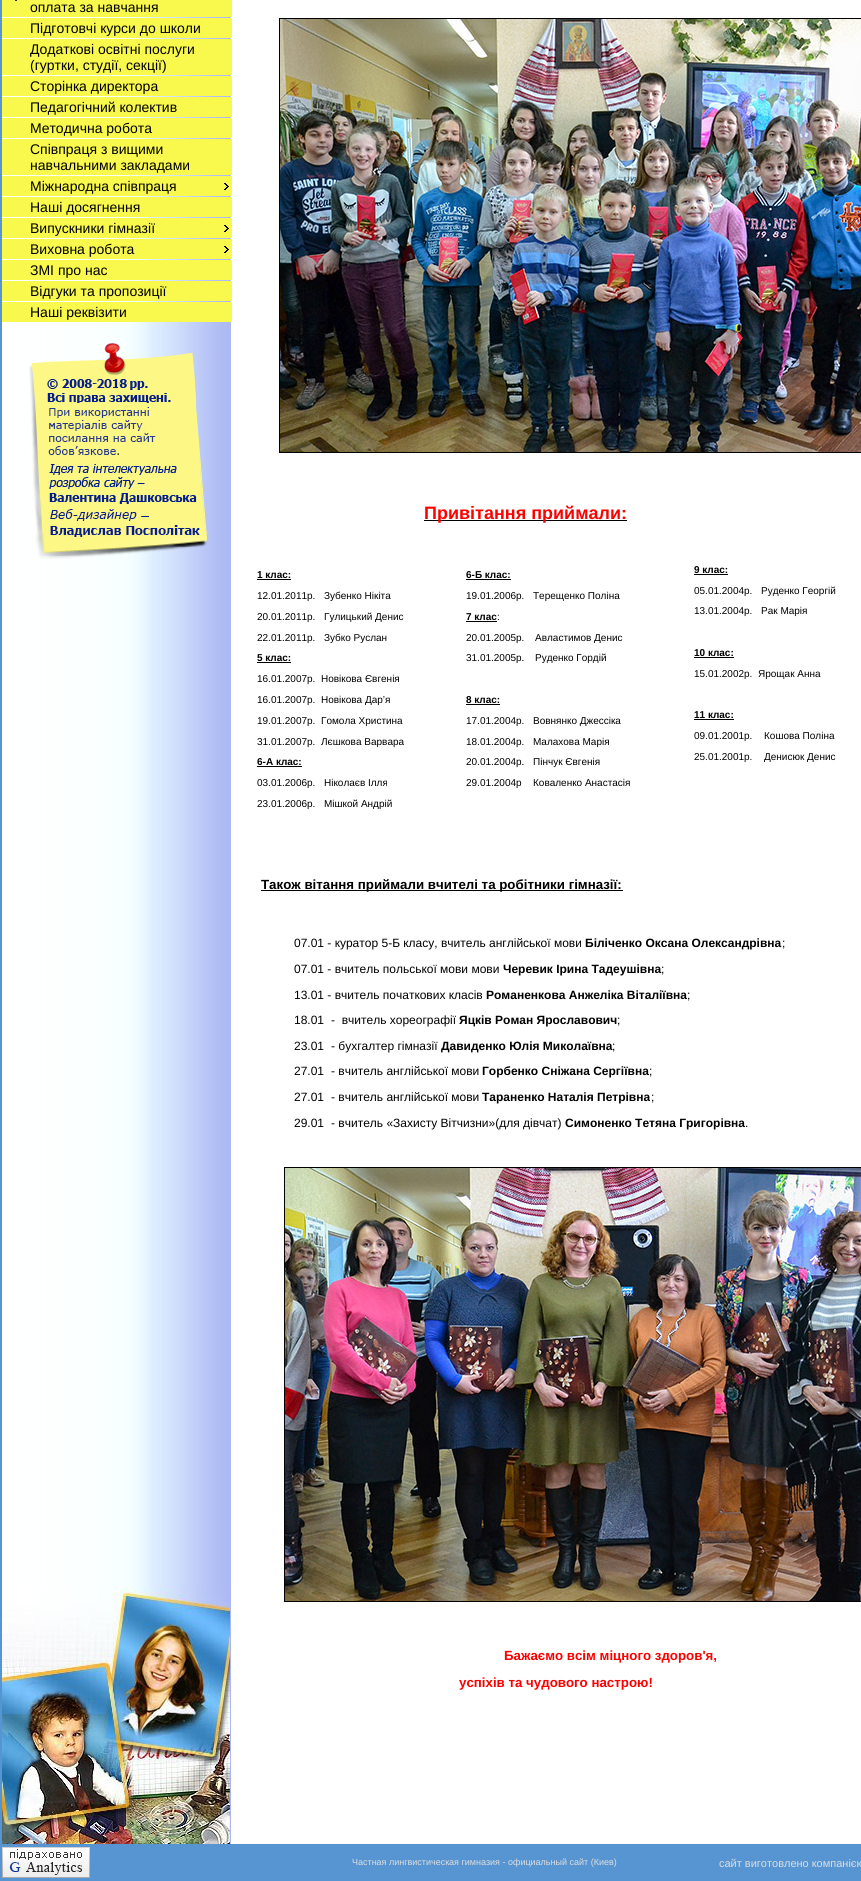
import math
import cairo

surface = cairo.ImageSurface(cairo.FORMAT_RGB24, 861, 1881)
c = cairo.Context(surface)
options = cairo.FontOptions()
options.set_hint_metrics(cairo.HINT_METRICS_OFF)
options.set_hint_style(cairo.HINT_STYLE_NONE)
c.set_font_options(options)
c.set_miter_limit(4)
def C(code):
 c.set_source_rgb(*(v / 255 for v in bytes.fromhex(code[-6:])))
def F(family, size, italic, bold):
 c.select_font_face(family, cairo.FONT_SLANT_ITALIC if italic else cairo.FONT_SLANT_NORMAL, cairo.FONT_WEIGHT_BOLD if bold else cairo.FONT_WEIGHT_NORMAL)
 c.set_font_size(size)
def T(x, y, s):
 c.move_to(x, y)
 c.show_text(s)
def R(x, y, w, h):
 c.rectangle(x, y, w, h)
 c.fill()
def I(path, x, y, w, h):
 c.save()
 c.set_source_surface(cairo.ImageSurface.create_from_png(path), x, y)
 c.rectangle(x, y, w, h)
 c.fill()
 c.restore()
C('5694d2')
c.paint()
C('ffffff')
R(231,17,1,1827)
I('1.png',1,0,230,1844)
I('2.png',2,1586,228,258)
C('f8f84d')
R(2,0,230,17)
C('282828')
R(15,0,2,1)
F('Liberation Sans',14,0,0)
C('000000')
T(30,12,'оплата за навчання')
C('f8f84d')
R(2,18,230,20)
C('000000')
T(30,33,'Підготовчі курси до школи')
C('f8f84d')
R(2,39,230,36)
C('000000')
T(30,54,'Додаткові освітні послуги')
T(30,70,'(гуртки, студії, секції)')
C('f8f84d')
R(2,76,230,20)
C('000000')
T(30,91,'Сторінка директора')
C('f8f84d')
R(2,97,230,20)
C('000000')
T(30,112,'Педагогічний колектив')
C('f8f84d')
R(2,118,230,20)
C('000000')
T(30,133,'Методична робота')
C('f8f84d')
R(2,139,230,36)
C('000000')
T(30,154,'Співпраця з вищими')
T(30,170,'навчальними закладами')
C('f8f84d')
R(2,176,230,20)
C('000000')
T(30,191,'Міжнародна співпраця')
I('3.png',224,183,5,7)
C('f8f84d')
R(2,197,230,20)
C('000000')
T(30,212,'Наші досягнення')
C('f8f84d')
R(2,218,230,20)
C('000000')
T(30,233,'Випускники гімназії')
I('3.png',224,225,5,7)
C('f8f84d')
R(2,239,230,20)
C('000000')
T(30,254,'Виховна робота')
I('3.png',224,246,5,7)
C('f8f84d')
R(2,260,230,20)
C('000000')
T(30,275,'ЗМІ про нас')
C('f8f84d')
R(2,281,230,20)
C('000000')
T(30,296,'Відгуки та пропозиції')
C('f8f84d')
R(2,302,230,20)
C('000000')
T(30,317,'Наші реквізити')
I('4.png',29,343,179,216)
C('ffffff')
R(232,0,629,1844)
c.rectangle(279.5,18.5,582,434)
C('000000')
c.set_line_width(1)
c.stroke()
I('5.png',280,19,581,433)
R(424,520,203,1)
F('Liberation Sans',18,0,1)
C('ff0000')
T(424,519,'Привітання приймали:')
F('Liberation Sans',10,0,1)
C('000000')
T(257,578,'1 клас:')
R(257,579,34,1)
F('Liberation Sans',10,0,0)
T(257,599,'12.01.2011р.')
T(324,599,'Зубенко Нікіта')
T(257,620,'20.01.2011р.')
T(324,620,'Гулицький Денис')
T(257,641,'22.01.2011р.')
T(324,641,'Зубко Руслан')
F('Liberation Sans',10,0,1)
T(257,661,'5 клас:')
R(257,662,34,1)
F('Liberation Sans',10,0,0)
T(257,682,'16.01.2007р.')
T(321,682,'Новікова Євгенія')
T(257,703,'16.01.2007р.')
T(321,703,'Новікова Дар’я')
T(257,724,'19.01.2007р.')
T(321,724,'Гомола Христина')
T(257,745,'31.01.2007р.')
T(321,745,'Лєшкова Варвара')
F('Liberation Sans',10,0,1)
T(257,765,'6-А клас:')
R(257,766,45,1)
F('Liberation Sans',10,0,0)
T(257,786,'03.01.2006р.')
T(324,786,'Ніколаєв Ілля')
T(257,807,'23.01.2006р.')
T(324,807,'Мішкой Андрій')
F('Liberation Sans',10,0,1)
T(466,578,'6-Б клас:')
R(466,579,45,1)
F('Liberation Sans',10,0,0)
T(466,599,'19.01.2006р.')
T(533,599,'Терещенко Поліна')
F('Liberation Sans',10,0,1)
T(466,620,'7 клас')
R(466,621,31,1)
F('Liberation Sans',10,0,0)
T(497,620,':')
T(466,641,'20.01.2005р.')
T(535,641,'Авластимов Денис')
T(466,661,'31.01.2005р.')
T(535,661,'Руденко Гордій')
F('Liberation Sans',10,0,1)
T(466,703,'8 клас:')
R(466,704,34,1)
F('Liberation Sans',10,0,0)
T(466,724,'17.01.2004р.')
T(533,724,'Вовнянко Джессіка')
T(466,745,'18.01.2004р.')
T(533,745,'Малахова Марія')
T(466,765,'20.01.2004р.')
T(533,765,'Пінчук Євгенія')
T(466,786,'29.01.2004р')
T(533,786,'Коваленко Анастасія')
F('Liberation Sans',10,0,1)
T(694,573,'9 клас:')
R(694,574,34,1)
F('Liberation Sans',10,0,0)
T(694,594,'05.01.2004р.')
T(761,594,'Руденко Георгій')
T(694,614,'13.01.2004р.')
T(761,614,'Рак Марія')
F('Liberation Sans',10,0,1)
T(694,656,'10 клас:')
R(694,657,40,1)
F('Liberation Sans',10,0,0)
T(694,677,'15.01.2002р.')
T(758,677,'Ярощак Анна')
F('Liberation Sans',10,0,1)
T(694,718,'11 клас:')
R(694,719,40,1)
F('Liberation Sans',10,0,0)
T(694,739,'09.01.2001р.')
T(764,739,'Кошова Поліна')
T(694,760,'25.01.2001р.')
T(764,760,'Денисюк Денис')
R(261,890,362,1)
F('Liberation Sans',13.3,0,1)
T(261,889,'Також вітання приймали вчителі та робітники гімназії:')
F('Liberation Sans',12,0,0)
T(294,947,'07.01 - куратор 5-Б класу, вчитель англійської мови')
F('Liberation Sans',12,0,1)
T(585,947,'Біліченко Оксана Олександрівна')
F('Liberation Sans',12,0,0)
T(782,947,';')
T(294,973,'07.01 - вчитель польської мови мови')
F('Liberation Sans',12,0,1)
T(503,973,'Черевик Ірина Тадеушівна')
F('Liberation Sans',12,0,0)
T(661,973,';')
T(294,999,'13.01 - вчитель початкових класів')
F('Liberation Sans',12,0,1)
T(486,999,'Романенкова Анжеліка Віталіївна')
F('Liberation Sans',12,0,0)
T(687,999,';')
T(294,1024,'18.01')
T(331,1024,'-  вчитель хореографії')
F('Liberation Sans',12,0,1)
T(459,1024,'Яцків Роман Ярославович')
F('Liberation Sans',12,0,0)
T(617,1024,';')
T(294,1050,'23.01')
T(331,1050,'- бухгалтер гімназії')
F('Liberation Sans',12,0,1)
T(441,1050,'Давиденко Юлія Миколаївна')
F('Liberation Sans',12,0,0)
T(612,1050,';')
T(294,1075,'27.01')
T(331,1075,'- вчитель англійської мови')
F('Liberation Sans',12,0,1)
T(482,1075,'Горбенко Сніжана Сергіївна')
F('Liberation Sans',12,0,0)
T(649,1075,';')
T(294,1101,'27.01')
T(331,1101,'- вчитель англійської мови')
F('Liberation Sans',12,0,1)
T(482,1101,'Тараненко Наталія Петрівна')
F('Liberation Sans',12,0,0)
T(651,1101,';')
T(294,1127,'29.01')
T(331,1127,'- вчитель «Захисту Вітчизни»(для дівчат)')
F('Liberation Sans',12,0,1)
T(565,1127,'Симоненко Тетяна Григорівна')
F('Liberation Sans',12,0,0)
T(745,1127,'.')
c.rectangle(284.5,1167.5,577,434)
c.stroke()
I('6.png',285,1168,576,433)
F('Liberation Sans',13.3,0,1)
C('ff0000')
T(504,1660,'Бажаємо всім міцного здоров\'я,')
T(459,1687,'успіхів та чудового настрою!')
I('7.png',2,1847,88,31)
F('Liberation Sans',9,0,0)
C('dedede')
T(352,1865,'Частная лингвистическая гимназия - официальный сайт (Киев)')
F('Liberation Sans',11,0,0)
T(719,1867,'сайт виготовлено компанією')
surface.write_to_png('o.png')
